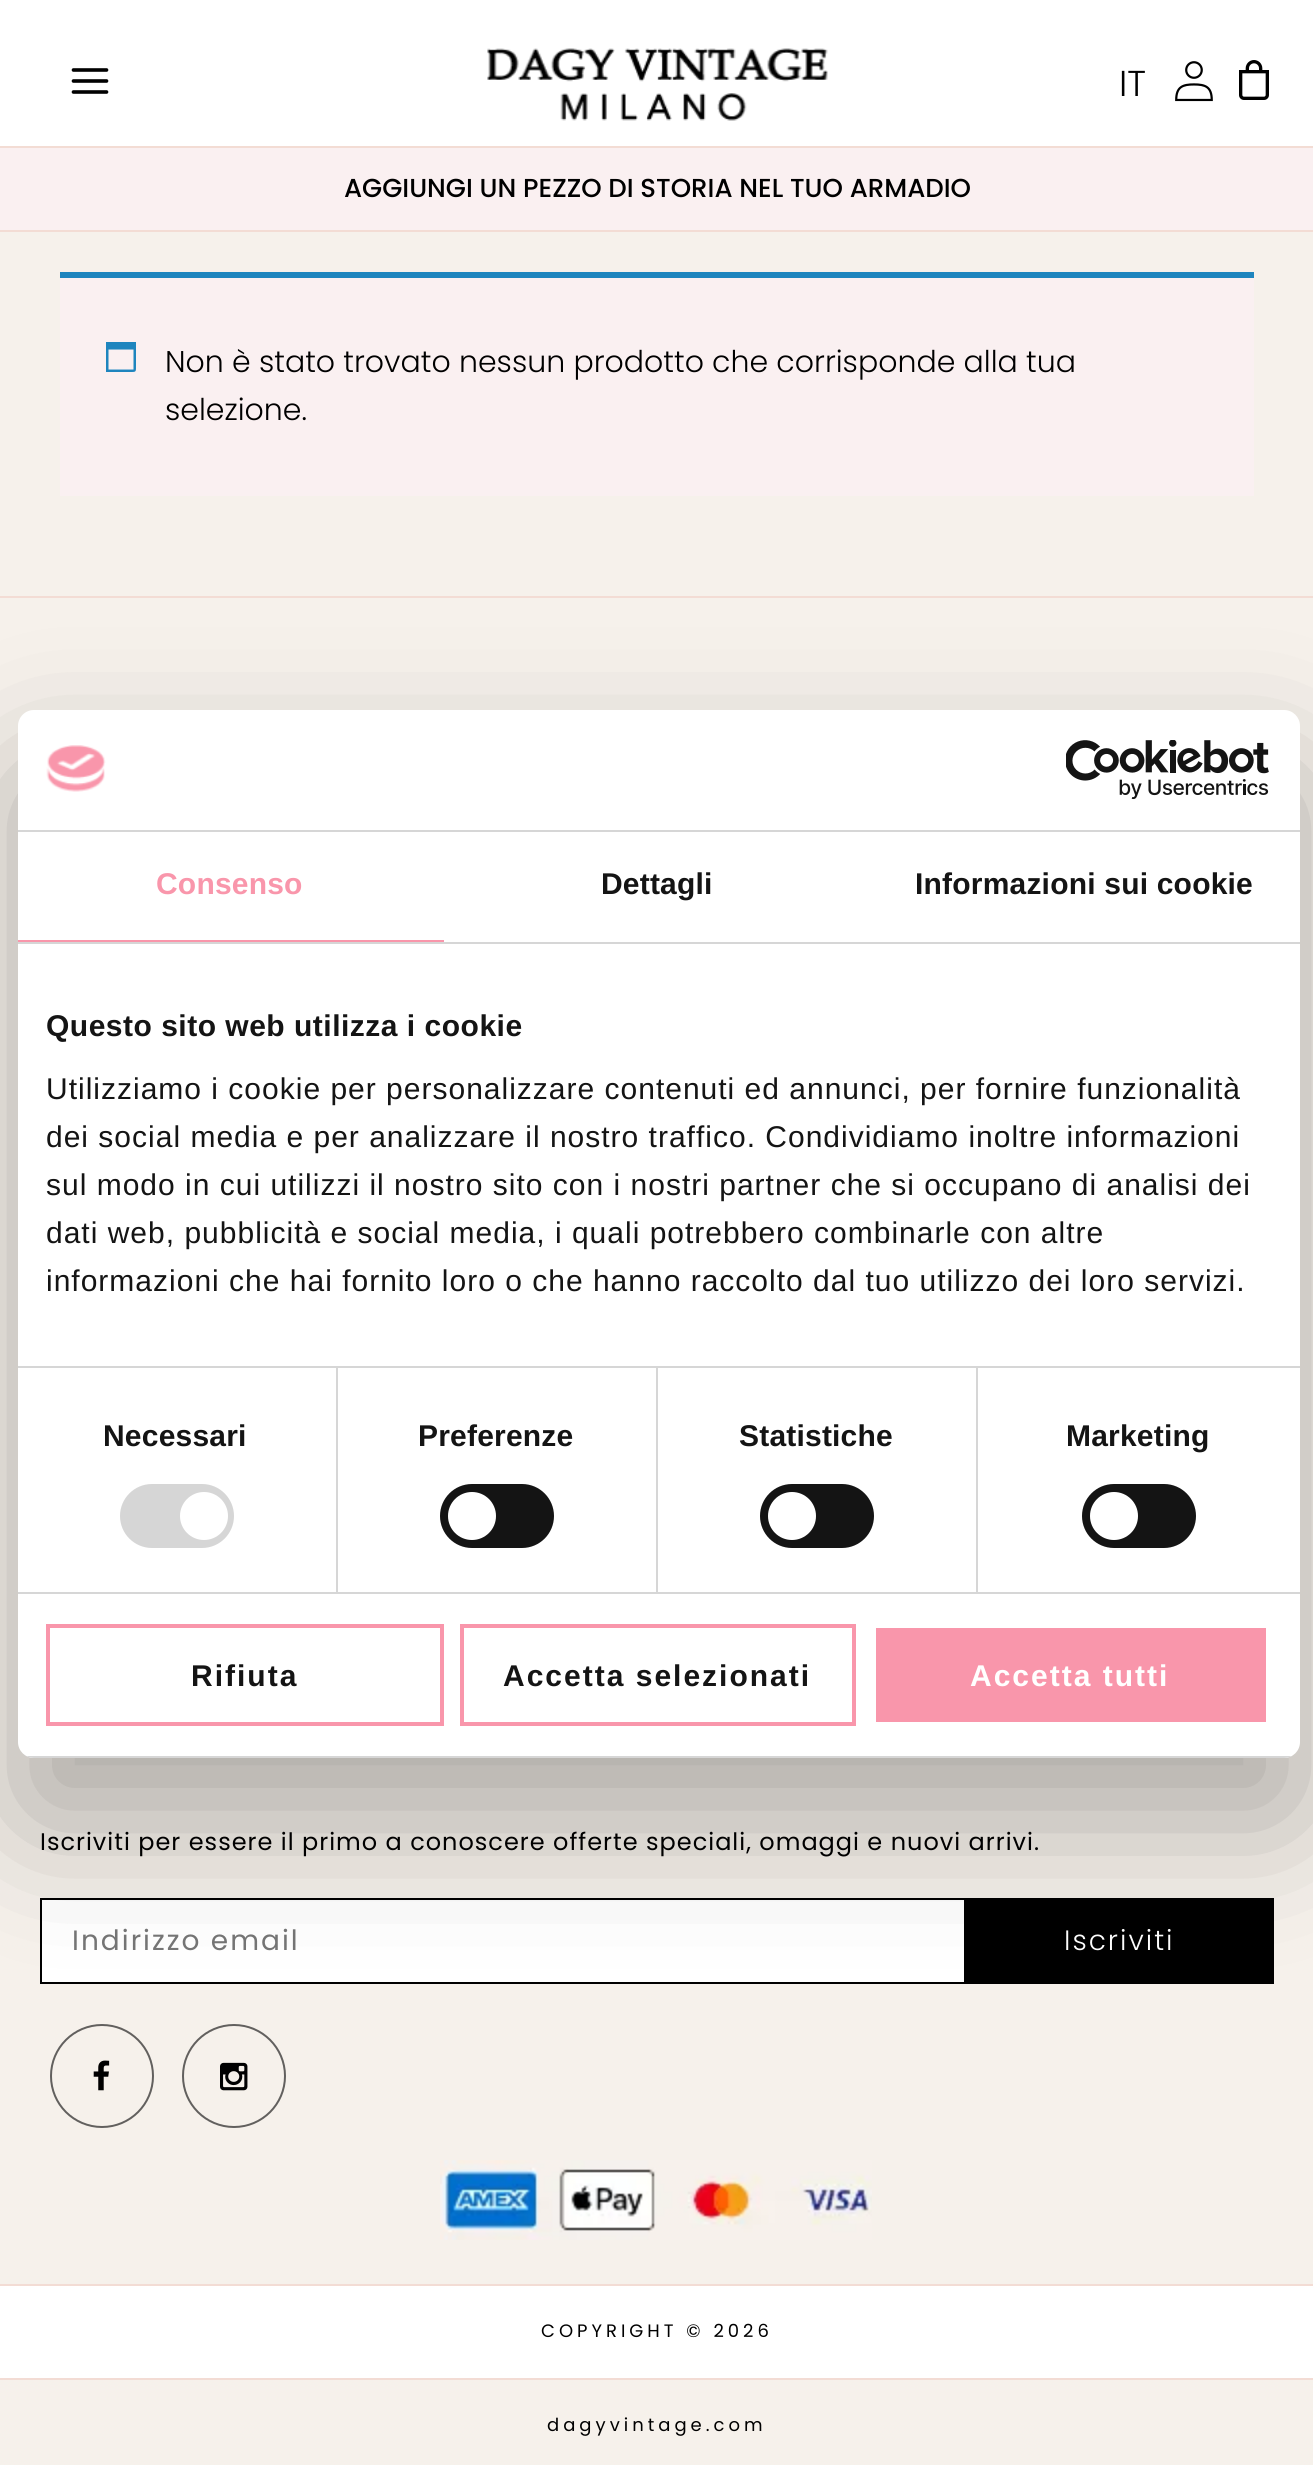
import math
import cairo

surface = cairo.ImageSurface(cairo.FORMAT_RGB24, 1313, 2465)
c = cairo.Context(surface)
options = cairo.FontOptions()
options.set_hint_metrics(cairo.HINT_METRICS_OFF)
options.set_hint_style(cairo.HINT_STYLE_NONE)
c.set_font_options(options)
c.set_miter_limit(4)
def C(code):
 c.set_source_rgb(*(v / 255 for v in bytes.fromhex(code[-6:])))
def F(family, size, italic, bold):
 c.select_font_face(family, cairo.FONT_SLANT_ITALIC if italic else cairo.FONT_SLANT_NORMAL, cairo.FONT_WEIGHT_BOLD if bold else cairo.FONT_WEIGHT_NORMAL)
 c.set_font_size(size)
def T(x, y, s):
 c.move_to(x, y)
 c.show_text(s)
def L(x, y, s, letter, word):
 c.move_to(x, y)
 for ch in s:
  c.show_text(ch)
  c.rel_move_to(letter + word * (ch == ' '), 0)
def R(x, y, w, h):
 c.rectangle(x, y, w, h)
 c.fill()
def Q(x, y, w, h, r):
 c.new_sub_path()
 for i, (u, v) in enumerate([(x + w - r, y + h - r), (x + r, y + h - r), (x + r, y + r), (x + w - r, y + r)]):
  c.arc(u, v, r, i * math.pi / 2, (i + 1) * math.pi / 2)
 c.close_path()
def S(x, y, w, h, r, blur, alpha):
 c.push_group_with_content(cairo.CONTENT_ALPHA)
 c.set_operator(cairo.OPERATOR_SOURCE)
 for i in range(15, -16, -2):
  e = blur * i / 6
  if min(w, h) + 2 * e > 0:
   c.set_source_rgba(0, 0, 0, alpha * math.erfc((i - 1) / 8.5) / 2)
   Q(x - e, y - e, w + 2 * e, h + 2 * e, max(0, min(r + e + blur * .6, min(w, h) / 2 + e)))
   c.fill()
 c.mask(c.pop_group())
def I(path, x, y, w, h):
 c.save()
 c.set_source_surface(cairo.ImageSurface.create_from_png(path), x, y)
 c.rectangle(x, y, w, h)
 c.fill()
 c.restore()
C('f6f1eb')
c.paint()
C('ffffff')
R(0,0,1313,146)
I('1.png',71,68,38,26)
I('2.png',1175,61,38,41)
I('3.png',1239,60,30,40)
F('Poppins Light',36,0,0)
C('000000')
T(1119,96,'IT')
I('4.png',487,48,341,73)
C('faf0f1')
R(0,148,1313,82)
C('f3dcd4')
R(0,146,1313,2)
R(0,230,1313,2)
F('Poppins Medium',26,0,0)
C('000000')
T(344,197,'AGGIUNGI UN PEZZO DI STORIA NEL TUO ARMADIO')
C('faf0f1')
R(60,278,1194,218)
C('1e85be')
R(60,272,1194,6)
c.new_path()
c.move_to(133.5,349.5)
c.line_to(108.5,349.5)
c.line_to(108.5,369.5)
c.line_to(133.5,369.5)
c.close_path()
c.move_to(136,342)
c.line_to(136,365)
c.curve_to(136,372.5,136.5,372,129,372)
c.line_to(106,372)
c.line_to(106,342)
c.close_path()
c.fill()
F('Poppins Light',30,0,0)
C('000000')
T(165,372,'Non è stato trovato nessun prodotto che corrisponde alla tua')
T(165,420,'selezione.')
C('f3dcd4')
R(0,596,1313,2)
F('Poppins',24,0,0)
C('000000')
L(40,1850,'Iscriviti per essere il primo a conoscere offerte speciali, omaggi e nuovi arrivi.',1,0)
C('ffffff')
c.rectangle(41,1899,924,84)
c.fill_preserve()
C('000000')
c.stroke()
F('Poppins',28,0,0)
C('757575')
L(72,1950,'Indirizzo email',2,0)
C('000000')
R(966,1898,308,86)
F('Poppins Light',28,0,0)
C('ffffff')
L(1064,1950,'Iscriviti',2,0)
c.new_path()
c.arc(102,2076,51,0,2 * math.pi)
C('62605e')
c.stroke()
I('5.png',93,2060,17,31)
c.arc(234,2076,51,0,2 * math.pi)
c.stroke()
I('6.png',220,2062,28,29)
I('7.png',440,2160,432,80)
C('ffffff')
R(0,2286,1313,92)
C('f3dcd4')
R(0,2284,1313,2)
F('Poppins',18,0,0)
C('000000')
L(541,2337,'COPYRIGHT © 2026',4,0)
C('f3dcd4')
R(0,2378,1313,2)
C('000000')
L(547,2431,'dagyvintage.com',4,0)
C('000000')
S(18,774,1282,1048,16,68,.3)
C('ffffff')
Q(18,710,1282,1048,16)
c.fill()
C('d6d6d6')
R(18,830,1282,2)
I('8.png',46,745,60,47)
I('9.png',1066,740,203,60)
R(18,942,1282,2)
C('f996ab')
R(18,940,426,2)
F('Liberation Sans',30,0,1)
L(156,894,'Consenso',.2,0)
C('141414')
L(601,894,'Dettagli',.2,0)
L(915,894,'Informazioni sui cookie',.2,0)
C('d6d6d6')
R(18,1366,1282,2)
C('141414')
L(46,1036,'Questo sito web utilizza i cookie',.5,0)
F('Liberation Sans',30,0,0)
L(46,1099,'Utilizziamo i cookie per personalizzare contenuti ed annunci, per fornire funzionalità',1,0)
L(46,1147,'dei social media e per analizzare il nostro traffico. Condividiamo inoltre informazioni',1,0)
L(46,1195,'sul modo in cui utilizzi il nostro sito con i nostri partner che si occupano di analisi dei',1,0)
L(46,1243,'dati web, pubblicità e social media, i quali potrebbero combinarle con altre',1,0)
L(46,1291,'informazioni che hai fornito loro o che hanno raccolto dal tuo utilizzo dei loro servizi.',1,0)
C('d6d6d6')
R(18,1592,1282,2)
R(336,1368,2,224)
F('Liberation Sans',30,0,1)
C('141414')
L(103,1446,'Necessari',.2,0)
C('d6d6d6')
Q(120,1484,114,64,32)
c.fill()
C('ffffff')
c.arc(204,1516,24,0,2 * math.pi)
c.fill()
C('d6d6d6')
R(656,1368,2,224)
C('141414')
L(418,1446,'Preferenze',.2,0)
Q(440,1484,114,64,32)
c.fill()
C('ffffff')
c.arc(472,1516,24,0,2 * math.pi)
c.fill()
C('d6d6d6')
R(976,1368,2,224)
C('141414')
L(739,1446,'Statistiche',.2,0)
Q(760,1484,114,64,32)
c.fill()
C('ffffff')
c.arc(792,1516,24,0,2 * math.pi)
c.fill()
C('141414')
L(1066,1446,'Marketing',.2,0)
Q(1082,1484,114,64,32)
c.fill()
C('ffffff')
c.arc(1114,1516,24,0,2 * math.pi)
c.fill()
c.save()
Q(18,710,1282,1048,16)
c.clip()
C('d6d6d6')
R(18,1756,1282,2)
c.restore()
c.rectangle(48,1626,394,98)
C('f996ab')
c.set_line_width(4)
c.stroke()
C('141414')
L(191,1686,'Rifiuta',2,0)
c.rectangle(462,1626,392,98)
C('f996ab')
c.stroke()
C('141414')
L(503,1686,'Accetta selezionati',2,0)
C('f996ab')
R(876,1628,390,94)
C('ffffff')
L(970,1686,'Accetta tutti',2,0)
surface.write_to_png('o.png')
